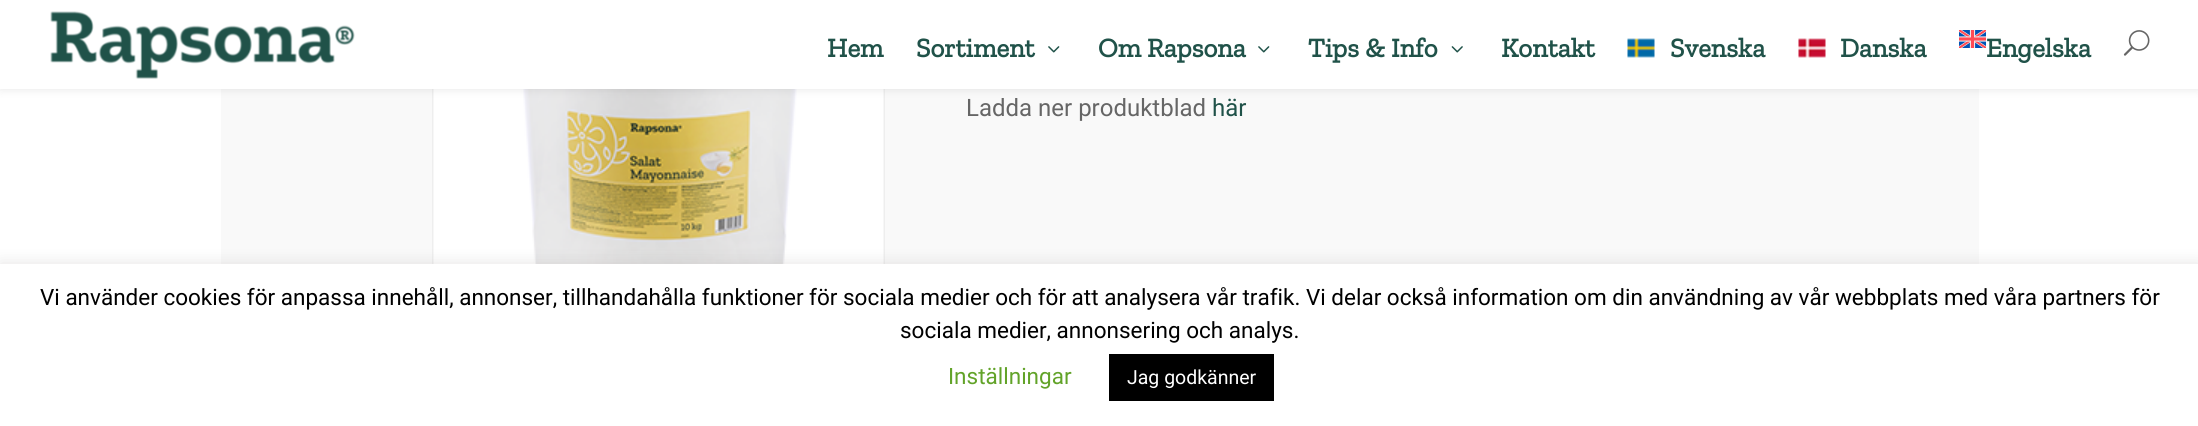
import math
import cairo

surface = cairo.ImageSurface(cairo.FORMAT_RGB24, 2198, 426)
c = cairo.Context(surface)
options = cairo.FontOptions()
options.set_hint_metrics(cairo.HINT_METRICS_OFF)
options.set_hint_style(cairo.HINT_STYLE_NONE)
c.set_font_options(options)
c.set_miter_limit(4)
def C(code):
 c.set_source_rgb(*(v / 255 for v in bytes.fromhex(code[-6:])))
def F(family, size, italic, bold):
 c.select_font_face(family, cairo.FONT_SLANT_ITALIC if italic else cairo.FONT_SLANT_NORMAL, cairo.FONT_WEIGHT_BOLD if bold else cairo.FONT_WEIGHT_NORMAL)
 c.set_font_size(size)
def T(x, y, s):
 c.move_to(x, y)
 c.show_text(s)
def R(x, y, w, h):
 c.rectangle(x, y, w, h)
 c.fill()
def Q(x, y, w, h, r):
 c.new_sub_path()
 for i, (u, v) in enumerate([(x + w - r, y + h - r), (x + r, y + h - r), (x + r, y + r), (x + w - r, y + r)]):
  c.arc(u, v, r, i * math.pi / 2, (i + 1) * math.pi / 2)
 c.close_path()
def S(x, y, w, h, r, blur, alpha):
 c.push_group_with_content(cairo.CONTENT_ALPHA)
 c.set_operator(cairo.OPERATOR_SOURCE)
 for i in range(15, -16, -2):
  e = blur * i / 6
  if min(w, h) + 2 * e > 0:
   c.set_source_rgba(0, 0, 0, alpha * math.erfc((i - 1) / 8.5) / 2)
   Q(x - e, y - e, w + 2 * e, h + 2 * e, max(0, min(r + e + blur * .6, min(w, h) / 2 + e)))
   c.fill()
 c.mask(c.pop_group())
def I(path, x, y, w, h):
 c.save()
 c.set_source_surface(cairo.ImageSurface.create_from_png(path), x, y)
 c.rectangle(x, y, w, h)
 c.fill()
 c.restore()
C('ffffff')
c.paint()
C('f9f9f9')
R(221,89,1758,175)
c.rectangle(433,-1,451,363)
C('eeeeee')
c.stroke()
I('8.png',433,89,451,175)
C('000000')
S(0,0,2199,89,0,5,.1)
C('ffffff')
R(0,0,2198,89)
I('1.png',50,11,305,68)
F('Zilla Slab',27,0,1)
C('205249')
T(827,57,'Hem')
T(916,57,'Sortiment')
I('2.png',1048,46,12,7)
T(1098,57,'Om Rapsona')
I('2.png',1258,46,12,7)
T(1308,57,'Tips & Info')
I('3.png',1451,46,12,7)
T(1501,57,'Kontakt')
I('4.png',1627,38,28,20)
T(1670,57,'Svenska')
I('5.png',1798,38,28,20)
T(1840,57,'Danska')
I('6.png',1959,30,27,18)
T(1986,57,'Engelska')
I('7.png',2123,30,27,26)
F('Roboto',24,0,0)
C('666666')
T(966,116,'Ladda ner produktblad')
C('205249')
T(1212,116,'här')
C('acabab')
S(0,263,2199,162,0,7.5,.3)
C('ffffff')
R(0,264,2198,162)
F('Roboto',22.5,0,0)
C('000000')
T(40,305,'Vi använder cookies för anpassa innehåll, annonser, tillhandahålla funktioner för sociala medier och för att analysera vår trafik. Vi delar också information om din användning av vår webbplats med våra partners för')
T(900,338,'sociala medier, annonsering och analys.')
C('62a329')
T(948,384,'Inställningar')
C('000000')
R(1109,354,165,47)
F('Roboto',19.5,0,0)
C('ffffff')
T(1127,384,'Jag godkänner')
surface.write_to_png('o.png')
